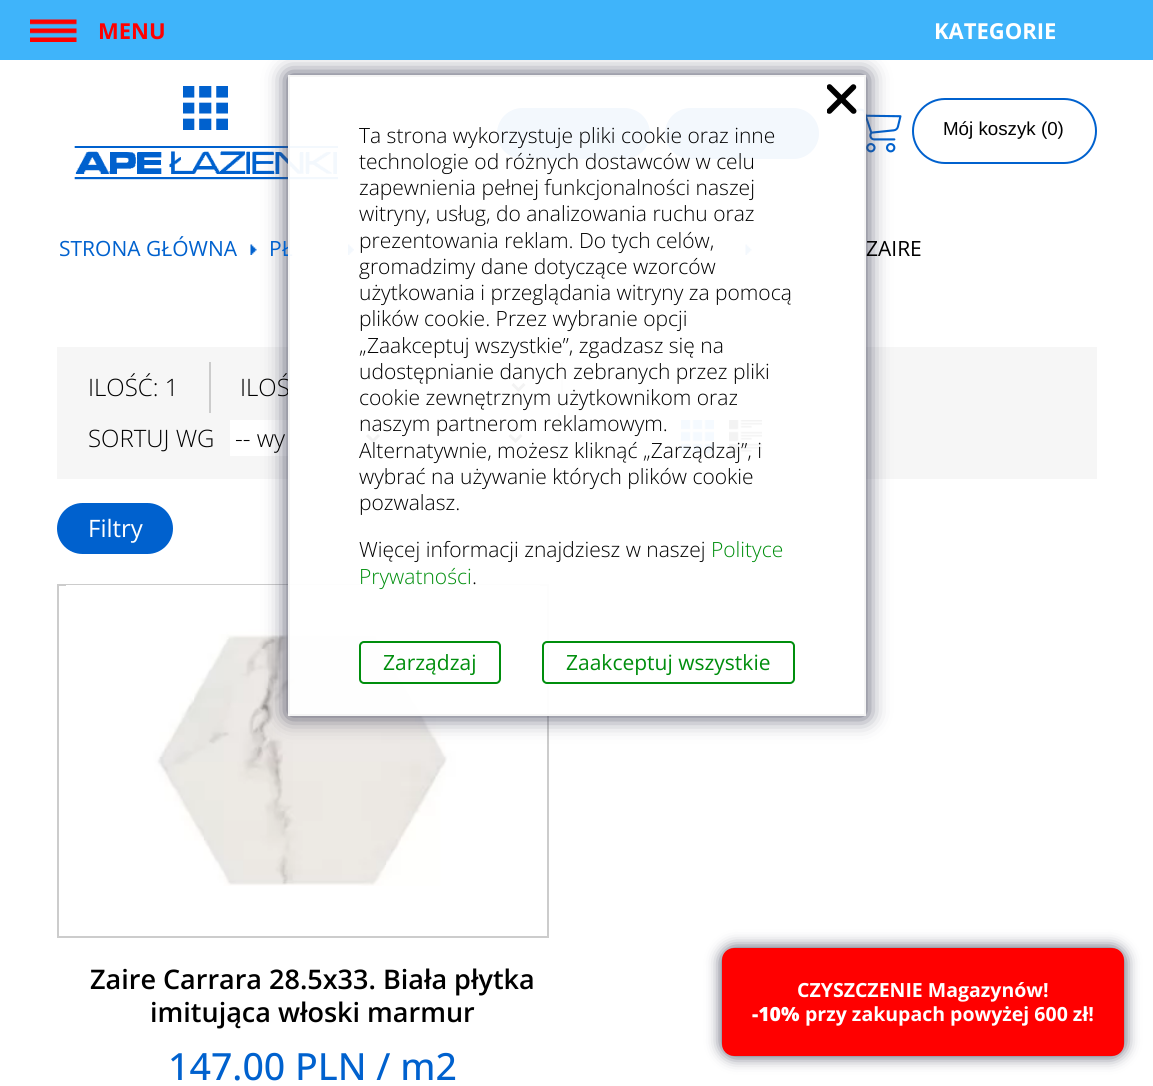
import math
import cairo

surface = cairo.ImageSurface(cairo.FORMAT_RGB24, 1153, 1086)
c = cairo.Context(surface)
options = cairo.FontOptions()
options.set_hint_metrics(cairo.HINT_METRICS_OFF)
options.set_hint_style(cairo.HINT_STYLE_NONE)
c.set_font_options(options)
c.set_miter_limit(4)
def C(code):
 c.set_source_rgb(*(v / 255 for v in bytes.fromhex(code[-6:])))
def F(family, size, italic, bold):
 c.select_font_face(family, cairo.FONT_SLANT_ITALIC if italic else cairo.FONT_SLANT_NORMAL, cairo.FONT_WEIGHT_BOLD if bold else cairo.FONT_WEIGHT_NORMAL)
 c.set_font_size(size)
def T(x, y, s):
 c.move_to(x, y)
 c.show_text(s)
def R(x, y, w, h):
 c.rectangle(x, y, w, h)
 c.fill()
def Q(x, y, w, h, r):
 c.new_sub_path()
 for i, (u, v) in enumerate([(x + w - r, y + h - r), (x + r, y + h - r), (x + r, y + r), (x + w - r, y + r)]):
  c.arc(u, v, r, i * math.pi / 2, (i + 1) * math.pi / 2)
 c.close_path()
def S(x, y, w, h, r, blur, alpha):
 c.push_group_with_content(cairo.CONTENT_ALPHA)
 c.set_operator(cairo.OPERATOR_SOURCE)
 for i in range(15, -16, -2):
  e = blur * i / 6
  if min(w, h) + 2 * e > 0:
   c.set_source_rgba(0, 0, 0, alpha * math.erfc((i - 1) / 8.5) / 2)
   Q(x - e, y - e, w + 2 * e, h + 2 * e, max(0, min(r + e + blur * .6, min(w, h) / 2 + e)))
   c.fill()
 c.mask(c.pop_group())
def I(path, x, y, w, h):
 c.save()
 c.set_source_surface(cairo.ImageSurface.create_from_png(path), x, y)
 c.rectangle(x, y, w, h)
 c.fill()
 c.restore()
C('ffffff')
c.paint()
I('3.png',74,86,264,94)
C('0061ce')
Q(497,108,153,51,25.5)
c.fill()
Q(665,108,154,51,25.5)
c.fill()
I('4.png',857,108,45,45)
I('5.png',250,244,7,11)
I('6.png',348,244,6,11)
I('7.png',745,244,7,11)
C('f6f6f6')
R(57,347,1040,132)
C('cccccc')
R(561,362,2,51)
C('ffffff')
R(459,369,72,36)
c.new_path()
c.move_to(512.5,384)
c.line_to(518.5,390)
c.line_to(524.5,384)
C('000000')
c.set_line_width(3)
c.stroke()
C('cccccc')
R(558,413,2,51)
C('ffffff')
R(230,420,156,36)
c.new_path()
c.move_to(367,435)
c.line_to(373,441)
c.line_to(379,435)
C('000000')
c.stroke()
C('ffffff')
R(401,420,127,36)
c.new_path()
c.move_to(509.5,435)
c.line_to(515.5,441)
c.line_to(521.5,435)
C('000000')
c.stroke()
I('8.png',681,420,33,33)
I('9.png',729,420,33,33)
c.rectangle(58,585,490,352)
C('cccccc')
c.set_line_width(2)
c.stroke()
I('10.png',66,585,474,301)
c.save()
c.set_fill_rule(cairo.FILL_RULE_EVEN_ODD)
c.new_path()
c.move_to(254,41)
c.line_to(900,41)
c.line_to(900,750)
c.line_to(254,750)
c.close_path()
c.move_to(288,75)
c.line_to(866,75)
c.line_to(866,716)
c.line_to(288,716)
c.close_path()
c.clip()
C('42445a')
S(288,75,578,641,0,11,1)
c.restore()
C('3fb4fa')
R(0,0,1153,60)
I('1.png',30,19,47,23)
F('Open Sans',22,0,1)
C('ff0000')
T(98,39,'MENU')
C('ffffff')
T(934,39,'KATEGORIE')
F('Open Sans',21,0,0)
C('0061ce')
T(269,256,'PŁ')
c.set_source_rgba(1,1,1,0.95)
R(290,108,574,606)
F('Open Sans Light',24,0,0)
C('000000')
T(240,396,'ILOŚ')
c.rectangle(289,76,576,639)
C('f4f4f4')
c.stroke()
I('2.png',827,84,30,30)
F('Open Sans Light',21,0,0)
C('000000')
T(359,143,'Ta strona wykorzystuje pliki cookie oraz inne')
T(359,169,'technologie od różnych dostawców w celu')
T(359,195,'zapewnienia pełnej funkcjonalności naszej')
T(359,221,'witryny, usług, do analizowania ruchu oraz')
T(359,248,'prezentowania reklam. Do tych celów,')
T(359,274,'gromadzimy dane dotyczące wzorców')
T(359,300,'użytkowania i przeglądania witryny za pomocą')
T(359,326,'plików cookie. Przez wybranie opcji')
T(359,353,'„Zaakceptuj wszystkie”, zgadzasz się na')
T(359,379,'udostępnianie danych zebranych przez pliki')
T(359,405,'cookie zewnętrznym użytkownikom oraz')
T(359,431,'naszym partnerom reklamowym.')
T(359,458,'Alternatywnie, możesz kliknąć „Zarządzaj”, i')
T(359,484,'wybrać na używanie których plików cookie')
T(359,510,'pozwalasz.')
T(359,557,'Więcej informacji znajdziesz w naszej')
C('008e0d')
T(711,557,'Polityce')
T(359,584,'Prywatności')
C('000000')
T(472,584,'.')
Q(360,642,140,41,4)
C('008e0d')
c.stroke()
F('Open Sans',21,0,0)
T(383,670,'Zarządzaj')
Q(543,642,251,41,4)
c.stroke()
T(566,670,'Zaakceptuj wszystkie')
Q(913,99,183,64,32)
C('0061ce')
c.stroke()
F('Liberation Sans',18.75,0,0)
C('000000')
T(943,135,'Mój koszyk (0)')
F('Open Sans',21,0,0)
C('0061ce')
T(59,256,'STRONA GŁÓWNA')
C('000000')
T(866,256,'ZAIRE')
C('cccccc')
R(209,362,2,51)
F('Open Sans Light',24,0,0)
C('000000')
T(88,396,'ILOŚĆ: 1')
T(88,447,'SORTUJ WG')
T(235,447,'-- wy')
C('0061ce')
Q(57,503,116,51,25.5)
c.fill()
F('Open Sans',24,0,0)
C('ffffff')
T(88,537,'Filtry')
F('Open Sans SemiBold',27,0,0)
C('000000')
T(90,989,'Zaire Carrara 28.5x33. Biała płytka')
T(150,1022,'imitująca włoski marmur')
F('Open Sans Medium',37.5,0,0)
C('0061ce')
T(168,1080,'147.00 PLN / m2')
C('42445a')
S(722,948,402,108,12,7.5,1)
C('ff0000')
Q(722,948,402,108,12)
c.fill()
F('Open Sans',19.5,0,1)
C('ffffff')
T(797,997,'CZYSZCZENIE Magazynów!')
F('Open Sans ExtraBold',19.5,0,0)
T(752,1021,'-10%')
F('Open Sans',19.5,0,1)
T(805,1021,'przy zakupach powyżej 600 zł!')
surface.write_to_png('o.png')
